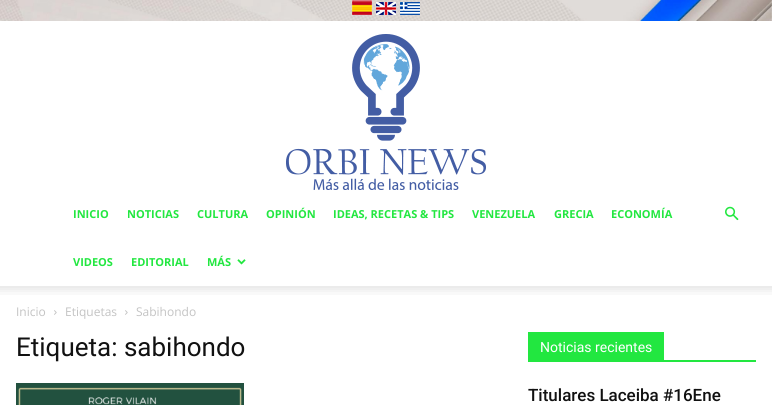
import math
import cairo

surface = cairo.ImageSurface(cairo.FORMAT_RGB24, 772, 405)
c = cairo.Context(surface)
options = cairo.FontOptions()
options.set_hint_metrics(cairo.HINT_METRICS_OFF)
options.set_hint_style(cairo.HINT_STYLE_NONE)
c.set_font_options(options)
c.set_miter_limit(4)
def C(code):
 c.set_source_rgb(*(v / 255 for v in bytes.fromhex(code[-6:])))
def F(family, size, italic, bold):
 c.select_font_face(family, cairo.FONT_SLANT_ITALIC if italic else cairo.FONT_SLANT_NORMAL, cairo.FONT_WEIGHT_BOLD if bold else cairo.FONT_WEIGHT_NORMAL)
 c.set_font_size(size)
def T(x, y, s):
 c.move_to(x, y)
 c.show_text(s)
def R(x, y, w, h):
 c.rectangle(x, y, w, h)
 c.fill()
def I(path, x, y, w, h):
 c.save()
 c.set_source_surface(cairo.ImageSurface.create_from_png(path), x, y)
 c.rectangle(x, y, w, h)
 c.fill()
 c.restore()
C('ffffff')
c.paint()
I('1.png',0,0,772,21)
I('2.png',352,0,20,15)
I('3.png',376,2,20,13)
I('4.png',400,2,20,13)
I('5.png',286,34,200,156)
F('Open Sans',11,0,1)
C('22e740')
T(73,218,'INICIO')
T(127,218,'NOTICIAS')
T(197,218,'CULTURA')
T(266,218,'OPINIÓN')
T(333,218,'IDEAS, RECETAS & TIPS')
T(472,218,'VENEZUELA')
T(554,218,'GRECIA')
T(611,218,'ECONOMÍA')
T(73,266,'VIDEOS')
T(131,266,'EDITORIAL')
T(207,266,'MÁS')
I('6.png',237,259,9,6)
I('7.png',725,206,14,15)
I('8.png',0,286,772,9)
F('Open Sans',12,0,0)
C('c3c3c3')
T(16,316,'Inicio')
I('9.png',54,310,3,5)
T(65,316,'Etiquetas')
I('9.png',125,310,3,5)
T(136,316,'Sabihondo')
F('Roboto',26,0,0)
C('111111')
T(16,356,'Etiqueta: sabihondo')
I('10.png',16,383,228,22)
C('22e740')
R(528,360,228,2)
R(528,332,136,28)
F('Roboto',14,0,0)
C('ffffff')
T(540,352,'Noticias recientes')
F('Roboto Medium',17,0,0)
C('111111')
T(528,401,'Titulares Laceiba #16Ene')
surface.write_to_png('o.png')
